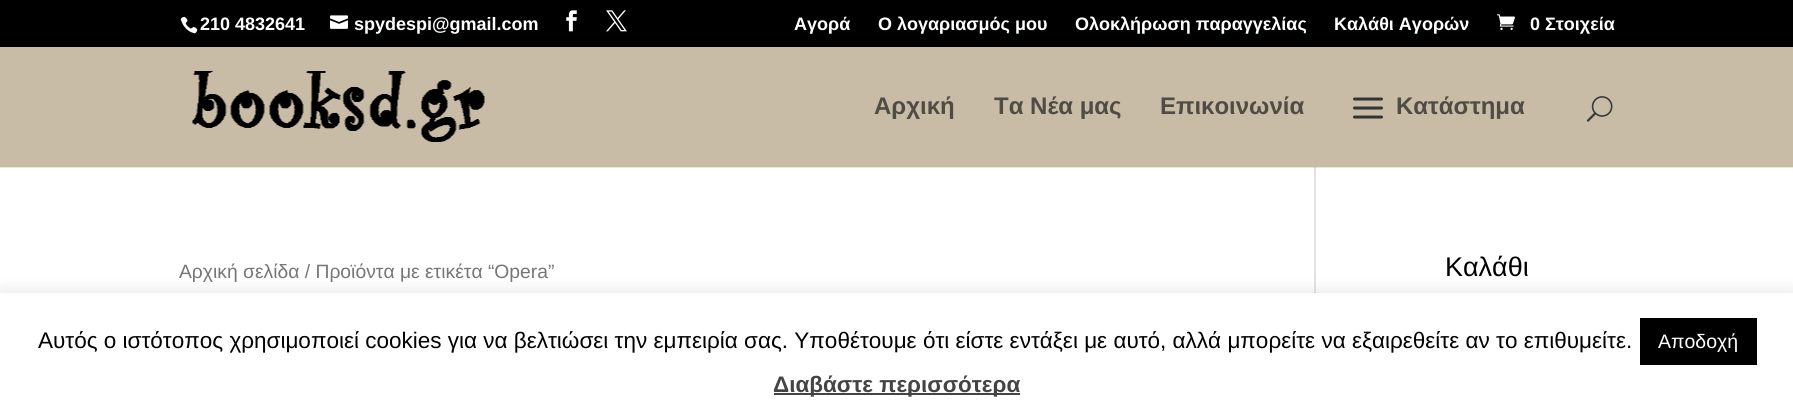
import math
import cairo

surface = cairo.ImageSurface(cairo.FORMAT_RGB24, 1793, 419)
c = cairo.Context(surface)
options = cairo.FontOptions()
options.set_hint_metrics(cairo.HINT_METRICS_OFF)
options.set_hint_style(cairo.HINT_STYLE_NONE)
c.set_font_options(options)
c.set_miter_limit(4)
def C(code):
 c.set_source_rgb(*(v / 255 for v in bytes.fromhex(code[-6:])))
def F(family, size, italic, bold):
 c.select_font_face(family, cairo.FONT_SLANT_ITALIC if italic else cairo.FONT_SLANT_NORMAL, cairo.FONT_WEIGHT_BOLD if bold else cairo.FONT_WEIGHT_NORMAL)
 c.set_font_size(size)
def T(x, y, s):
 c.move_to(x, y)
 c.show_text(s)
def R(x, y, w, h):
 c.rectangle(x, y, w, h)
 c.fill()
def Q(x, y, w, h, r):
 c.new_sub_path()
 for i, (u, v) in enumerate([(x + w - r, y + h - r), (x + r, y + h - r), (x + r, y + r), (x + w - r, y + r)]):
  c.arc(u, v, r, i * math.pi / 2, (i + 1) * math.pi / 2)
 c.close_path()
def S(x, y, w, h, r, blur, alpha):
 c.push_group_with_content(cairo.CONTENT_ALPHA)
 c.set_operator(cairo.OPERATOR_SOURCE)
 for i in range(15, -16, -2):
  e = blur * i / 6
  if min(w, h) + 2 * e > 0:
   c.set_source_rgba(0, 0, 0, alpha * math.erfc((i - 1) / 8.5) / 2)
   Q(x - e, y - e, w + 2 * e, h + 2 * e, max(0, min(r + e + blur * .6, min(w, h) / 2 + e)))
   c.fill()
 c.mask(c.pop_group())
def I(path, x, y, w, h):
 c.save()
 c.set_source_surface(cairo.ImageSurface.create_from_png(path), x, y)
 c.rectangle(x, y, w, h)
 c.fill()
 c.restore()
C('ffffff')
c.paint()
C('e6e6e6')
R(0,167,1793,1)
C('000000')
R(0,0,1793,47)
I('1.png',180,16,18,18)
F('Liberation Sans',18,0,1)
C('ffffff')
T(200,30,'210 4832641')
I('2.png',330,15,18,14)
T(354,30,'spydespi@gmail.com')
I('3.png',566,10,11,22)
I('4.png',606,10,21,22)
T(794,30,'Αγορά')
T(878,30,'Ο λογαριασμός μου')
T(1075,30,'Ολοκλήρωση παραγγελίας')
T(1334,30,'Καλάθι Αγορών')
I('5.png',1497,14,18,16)
T(1530,30,'0 Στοιχεία')
C('c8bca7')
R(0,47,1793,120)
I('6.png',192,71,293,71)
F('Liberation Sans',24,0,1)
C('504b43')
T(874,114,'Αρχική')
T(994,114,'Τα Νέα μας')
T(1160,114,'Επικοινωνία')
I('7.png',1353,97,30,22)
T(1396,114,'Κατάστημα')
I('8.png',1586,96,27,26)
C('e2e2e2')
R(1314,167,2,126)
C('cbcbcb')
R(1314,167,2,1)
F('Liberation Sans',19.3,0,0)
C('767676')
T(179,278,'Αρχική σελίδα / Προϊόντα με ετικέτα “Opera”')
F('Liberation Sans',27,0,0)
C('000000')
T(1445,276,'Καλάθι')
C('acabab')
S(0,291,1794,128,0,7.5,.3)
C('ffffff')
R(0,293,1793,126)
F('Liberation Sans',22.5,0,0)
C('000000')
T(38,348,'Αυτός ο ιστότοπος χρησιμοποιεί cookies για να βελτιώσει την εμπειρία σας. Υποθέτουμε ότι είστε εντάξει με αυτό, αλλά μπορείτε να εξαιρεθείτε αν το επιθυμείτε.')
R(1640,318,117,47)
F('Liberation Sans',19.5,0,0)
C('ffffff')
T(1658,348,'Αποδοχή')
C('444444')
R(774,393,246,2)
F('Liberation Sans',22.5,0,1)
T(773,392,'Διαβάστε περισσότερα')
surface.write_to_png('o.png')
